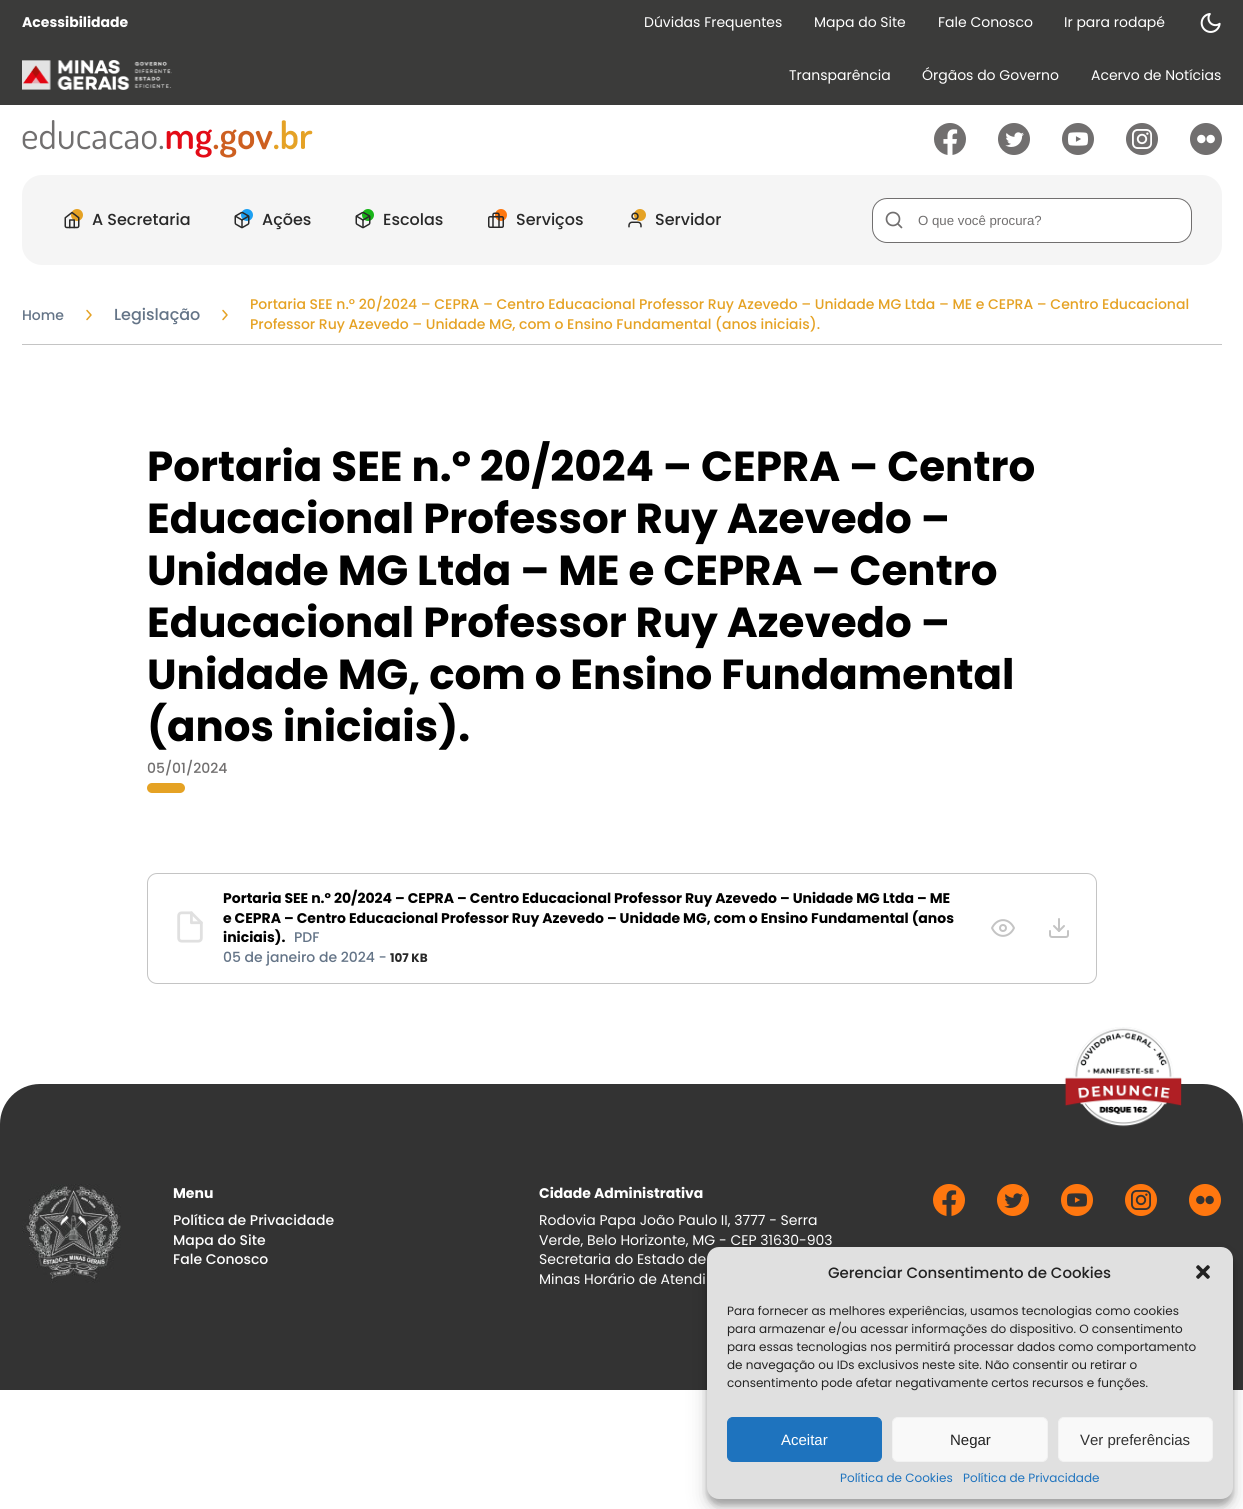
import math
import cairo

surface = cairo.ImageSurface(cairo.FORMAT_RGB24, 1243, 1509)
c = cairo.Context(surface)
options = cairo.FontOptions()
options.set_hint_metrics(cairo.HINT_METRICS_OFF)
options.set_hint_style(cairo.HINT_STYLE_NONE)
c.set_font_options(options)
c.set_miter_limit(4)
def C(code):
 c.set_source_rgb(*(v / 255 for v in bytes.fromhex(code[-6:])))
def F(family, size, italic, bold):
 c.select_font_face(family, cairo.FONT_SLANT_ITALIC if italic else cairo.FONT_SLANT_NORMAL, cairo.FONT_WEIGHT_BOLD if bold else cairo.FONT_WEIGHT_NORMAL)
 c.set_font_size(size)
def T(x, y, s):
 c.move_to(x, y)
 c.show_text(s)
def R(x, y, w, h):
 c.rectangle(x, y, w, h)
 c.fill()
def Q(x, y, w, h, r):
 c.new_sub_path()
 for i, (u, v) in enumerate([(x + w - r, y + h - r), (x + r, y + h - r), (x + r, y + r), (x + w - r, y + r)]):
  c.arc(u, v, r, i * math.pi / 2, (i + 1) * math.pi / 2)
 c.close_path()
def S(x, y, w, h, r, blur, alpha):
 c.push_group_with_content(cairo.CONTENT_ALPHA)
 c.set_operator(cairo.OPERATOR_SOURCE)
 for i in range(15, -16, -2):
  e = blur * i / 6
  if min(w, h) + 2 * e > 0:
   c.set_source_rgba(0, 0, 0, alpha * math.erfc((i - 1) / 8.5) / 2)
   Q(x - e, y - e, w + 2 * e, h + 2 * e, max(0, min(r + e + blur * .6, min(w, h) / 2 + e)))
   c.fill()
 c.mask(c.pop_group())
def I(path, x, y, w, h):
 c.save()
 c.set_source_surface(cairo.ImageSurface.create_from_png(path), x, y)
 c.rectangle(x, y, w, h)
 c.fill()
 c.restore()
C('ffffff')
c.paint()
C('3b3b3a')
R(0,0,1243,105)
F('Poppins',14,0,1)
C('ffffff')
T(22,27,'Acessibilidade')
F('Poppins',14,0,0)
T(644,27,'Dúvidas Frequentes')
T(814,27,'Mapa do Site')
T(938,27,'Fale Conosco')
T(1064,27,'Ir para rodapé')
I('1.png',1200,13,21,20)
I('2.png',22,60,150,30)
T(789,80,'Transparência')
T(922,80,'Órgãos do Governo')
T(1091,80,'Acervo de Notícias')
I('3.png',22,120,291,38)
I('4.png',934,123,32,32)
I('5.png',998,123,32,32)
I('6.png',1062,123,32,32)
I('7.png',1126,123,32,32)
I('8.png',1190,123,32,32)
C('f5f5f5')
Q(22,175,1200,90,20)
c.fill()
C('e5a224')
c.arc(77,215,6,0,2 * math.pi)
c.fill()
I('9.png',64,211,16,18)
F('Poppins Medium',16,0,0)
C('292929')
T(92,225,'A Secretaria')
C('1ca0f2')
c.new_path()
c.arc(247,215,6,0,2 * math.pi)
c.fill()
I('10.png',234,211,16,18)
C('292929')
T(262,225,'Ações')
C('18b518')
c.new_path()
c.arc(368,215,6,0,2 * math.pi)
c.fill()
I('11.png',355,211,16,18)
C('292929')
T(383,225,'Escolas')
C('ff770f')
c.new_path()
c.arc(501,215,6,0,2 * math.pi)
c.fill()
I('12.png',488,212,16,16)
C('292929')
T(516,225,'Serviços')
C('e5a224')
c.new_path()
c.arc(640,215,6,0,2 * math.pi)
c.fill()
I('13.png',628,212,14,16)
C('292929')
T(655,225,'Servidor')
C('ffffff')
Q(872.5,198.5,319,44,14.5)
c.fill_preserve()
C('716f6f')
c.set_line_width(1)
c.stroke()
c.arc(893,219,6.5,0,2 * math.pi)
c.set_line_width(1.7)
c.stroke()
c.new_path()
c.move_to(901.5,227.5)
c.line_to(898,224)
c.set_line_cap(cairo.LINE_CAP_ROUND)
c.set_line_join(cairo.LINE_JOIN_ROUND)
c.stroke()
F('Liberation Sans',13.25,0,0)
T(918,225,'O que você procura?')
C('c4c4c4')
R(22,344,1200,1)
F('Poppins Medium',14,0,0)
C('647487')
T(22,320,'Home')
c.new_path()
c.move_to(87,319.5)
c.line_to(91,315)
c.line_to(87,310.5)
C('e5a224')
c.set_line_width(1.5)
c.stroke()
F('Poppins Medium',16,0,0)
C('647487')
T(114,320,'Legislação')
c.new_path()
c.move_to(223,319.5)
c.line_to(227,315)
c.line_to(223,310.5)
C('e5a224')
c.stroke()
F('Poppins Medium',14,0,0)
T(250,309,'Portaria SEE n.º 20/2024 – CEPRA – Centro Educacional Professor Ruy Azevedo – Unidade MG Ltda – ME e CEPRA – Centro Educacional')
T(250,329,'Professor Ruy Azevedo – Unidade MG, com o Ensino Fundamental (anos iniciais).')
F('Poppins',42,0,1)
C('000000')
T(147,481,'Portaria SEE n.º 20/2024 – CEPRA – Centro')
T(147,533,'Educacional Professor Ruy Azevedo –')
T(147,585,'Unidade MG Ltda – ME e CEPRA – Centro')
T(147,637,'Educacional Professor Ruy Azevedo –')
T(147,689,'Unidade MG, com o Ensino Fundamental')
T(147,741,'(anos iniciais).')
F('Poppins Medium',14,0,0)
C('716f6f')
T(147,773,'05/01/2024')
C('e5a224')
Q(147,783,38,10,5)
c.fill()
Q(147.5,873.5,949,110,9.5)
C('c4c4c4')
c.set_line_width(1)
c.set_line_cap(cairo.LINE_CAP_BUTT)
c.set_line_join(cairo.LINE_JOIN_MITER)
c.stroke()
I('14.png',177,911,26,32)
F('Poppins',14,0,1)
C('000000')
T(223,903,'Portaria SEE n.º 20/2024 – CEPRA – Centro Educacional Professor Ruy Azevedo – Unidade MG Ltda – ME')
T(223,923,'e CEPRA – Centro Educacional Professor Ruy Azevedo – Unidade MG, com o Ensino Fundamental (anos')
T(223,942,'iniciais).')
F('Poppins Medium',14,0,0)
C('647487')
T(294,942,'PDF')
T(223,962,'05 de janeiro de 2024 -')
F('Poppins',12,0,1)
C('292929')
T(390,962,'107 KB')
c.new_path()
c.move_to(992,928)
c.curve_to(997,917.5,1009,917.5,1014,928)
c.curve_to(1009,938.5,997,938.5,992,928)
c.close_path()
C('c4c4c4')
c.set_line_width(2)
c.set_line_cap(cairo.LINE_CAP_ROUND)
c.set_line_join(cairo.LINE_JOIN_ROUND)
c.stroke()
c.arc(1003,928,3,0,2 * math.pi)
c.set_line_cap(cairo.LINE_CAP_BUTT)
c.set_line_join(cairo.LINE_JOIN_MITER)
c.stroke()
I('15.png',1049,918,20,20)
C('333333')
c.new_path()
c.move_to(40,1084)
c.line_to(1203,1084)
c.curve_to(1225,1084,1243,1102,1243,1124)
c.line_to(1243,1390)
c.line_to(0,1390)
c.line_to(0,1124)
c.curve_to(0,1102,18,1084,40,1084)
c.close_path()
c.fill()
I('16.png',1064,1027,118,100)
I('17.png',22,1184,99,99)
F('Poppins',14,0,1)
C('ffffff')
T(173,1198,'Menu')
F('Poppins Medium',14,0,0)
T(173,1225,'Política de Privacidade')
T(173,1245,'Mapa do Site')
T(173,1264,'Fale Conosco')
F('Poppins',14,0,1)
T(539,1198,'Cidade Administrativa')
F('Poppins',14,0,0)
T(539,1225,'Rodovia Papa João Paulo II, 3777 - Serra')
T(539,1245,'Verde, Belo Horizonte, MG - CEP 31630-903')
T(539,1264,'Secretaria do Estado de')
T(539,1284,'Minas Horário de Atendi')
I('18.png',933,1184,32,32)
I('19.png',997,1184,32,32)
I('20.png',1061,1184,32,32)
I('21.png',1125,1184,32,32)
I('22.png',1189,1184,32,32)
C('000000')
S(707,1253,526,252,12,3,.23)
S(707,1257,526,252,12,10,.19)
C('e0e0e0')
Q(707,1247,526,252,12)
c.fill()
F('Poppins Medium',15,0,0)
C('222222')
T(828,1278,'Gerenciar Consentimento de Cookies')
I('23.png',1196,1265,14,14)
F('Poppins',12,0,0)
T(727,1315,'Para fornecer as melhores experiências, usamos tecnologias como cookies')
T(727,1333,'para armazenar e/ou acessar informações do dispositivo. O consentimento')
T(727,1351,'para essas tecnologias nos permitirá processar dados como comportamento')
T(727,1369,'de navegação ou IDs exclusivos neste site. Não consentir ou retirar o')
T(727,1387,'consentimento pode afetar negativamente certos recursos e funções.')
C('1e73be')
Q(727.5,1417.5,154,44,5.5)
c.fill_preserve()
c.set_line_width(1)
c.stroke()
F('Liberation Sans',15,0,0)
C('ffffff')
T(781,1445,'Aceitar')
C('f9f9f9')
Q(892.5,1417.5,155,44,5.5)
c.fill_preserve()
C('f2f2f2')
c.stroke()
C('222222')
T(950,1445,'Negar')
C('f9f9f9')
Q(1058.5,1417.5,154,44,5.5)
c.fill_preserve()
C('f2f2f2')
c.stroke()
C('333333')
T(1080,1445,'Ver preferências')
F('Poppins',12,0,0)
C('1e73be')
T(840,1482,'Política de Cookies')
T(963,1482,'Política de Privacidade')
surface.write_to_png('o.png')
